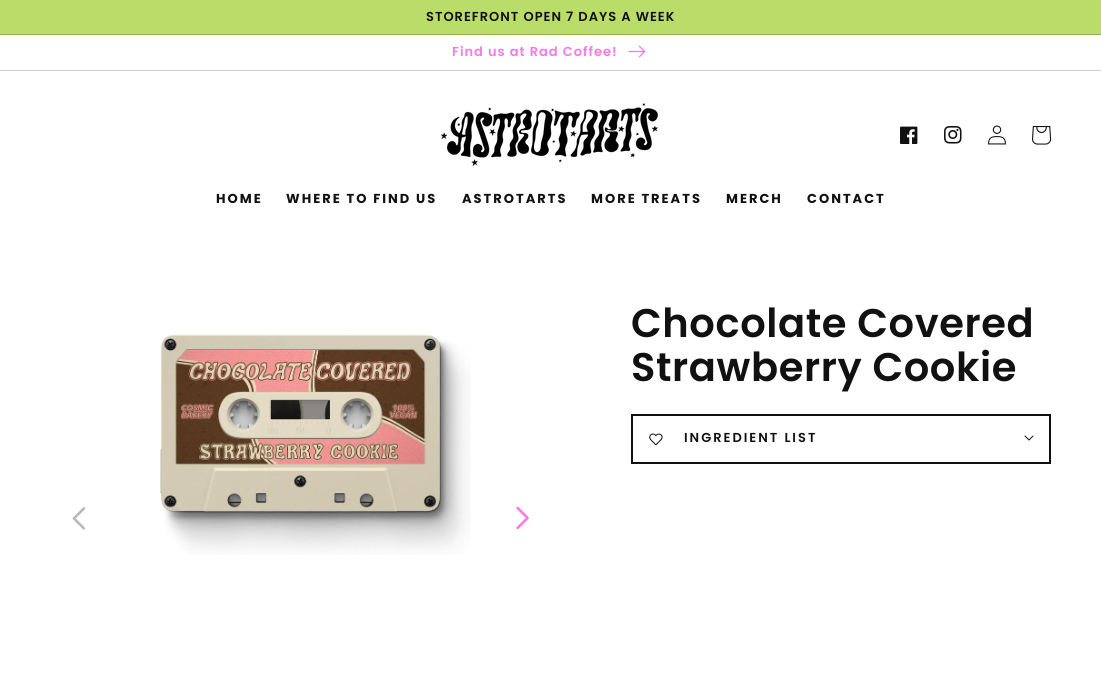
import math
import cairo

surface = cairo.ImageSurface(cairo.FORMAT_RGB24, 1101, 694)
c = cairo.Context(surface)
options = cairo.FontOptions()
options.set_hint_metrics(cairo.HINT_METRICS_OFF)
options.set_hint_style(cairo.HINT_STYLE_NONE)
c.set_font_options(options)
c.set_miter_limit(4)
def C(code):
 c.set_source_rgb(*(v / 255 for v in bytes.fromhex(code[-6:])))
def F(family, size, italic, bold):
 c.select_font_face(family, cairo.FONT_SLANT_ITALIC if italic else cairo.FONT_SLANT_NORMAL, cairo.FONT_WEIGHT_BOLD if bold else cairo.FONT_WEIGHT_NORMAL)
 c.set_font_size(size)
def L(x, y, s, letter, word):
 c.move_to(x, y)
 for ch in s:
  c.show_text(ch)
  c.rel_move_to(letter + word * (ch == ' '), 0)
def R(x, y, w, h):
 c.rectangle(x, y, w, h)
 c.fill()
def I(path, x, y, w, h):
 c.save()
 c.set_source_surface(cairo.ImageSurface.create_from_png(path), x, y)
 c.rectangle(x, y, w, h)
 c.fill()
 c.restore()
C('ffffff')
c.paint()
C('badd69')
R(0,0,1101,34)
C('98b457')
R(0,34,1101,1)
F('Poppins SemiBold',13,0,0)
C('111111')
L(426,21,'STOREFRONT OPEN 7 DAYS A WEEK',1,0)
C('cfcfcf')
R(0,70,1101,1)
C('fa78e6')
L(452,56,'Find us at Rad Coffee!',1,0)
I('1.png',628,45,18,13)
I('2.png',441,103,217,63)
I('3.png',900,126,18,18)
I('4.png',944,126,18,18)
I('5.png',988,125,18,20)
I('6.png',1032,126,20,19)
F('Poppins',13,0,1)
C('111111')
L(216,203,'HOME',2,0)
L(286,203,'WHERE TO FIND US',2,0)
L(462,203,'ASTROTARTS',2,0)
L(591,203,'MORE TREATS',2,0)
L(726,203,'MERCH',2,0)
L(807,203,'CONTACT',2,0)
I('7.png',72,507,14,23)
I('8.png',160,334,311,221)
I('9.png',516,506,13,24)
F('Poppins SemiBold',40,0,0)
L(631,337,'Chocolate Covered',.6,0)
L(631,381,'Strawberry Cookie',.6,0)
c.rectangle(632,415,418,48)
c.stroke()
I('10.png',649,433,14,13)
F('Poppins SemiBold',13,0,0)
L(684,442,'INGREDIENT LIST',2,0)
I('11.png',1024,435,10,6)
surface.write_to_png('o.png')
